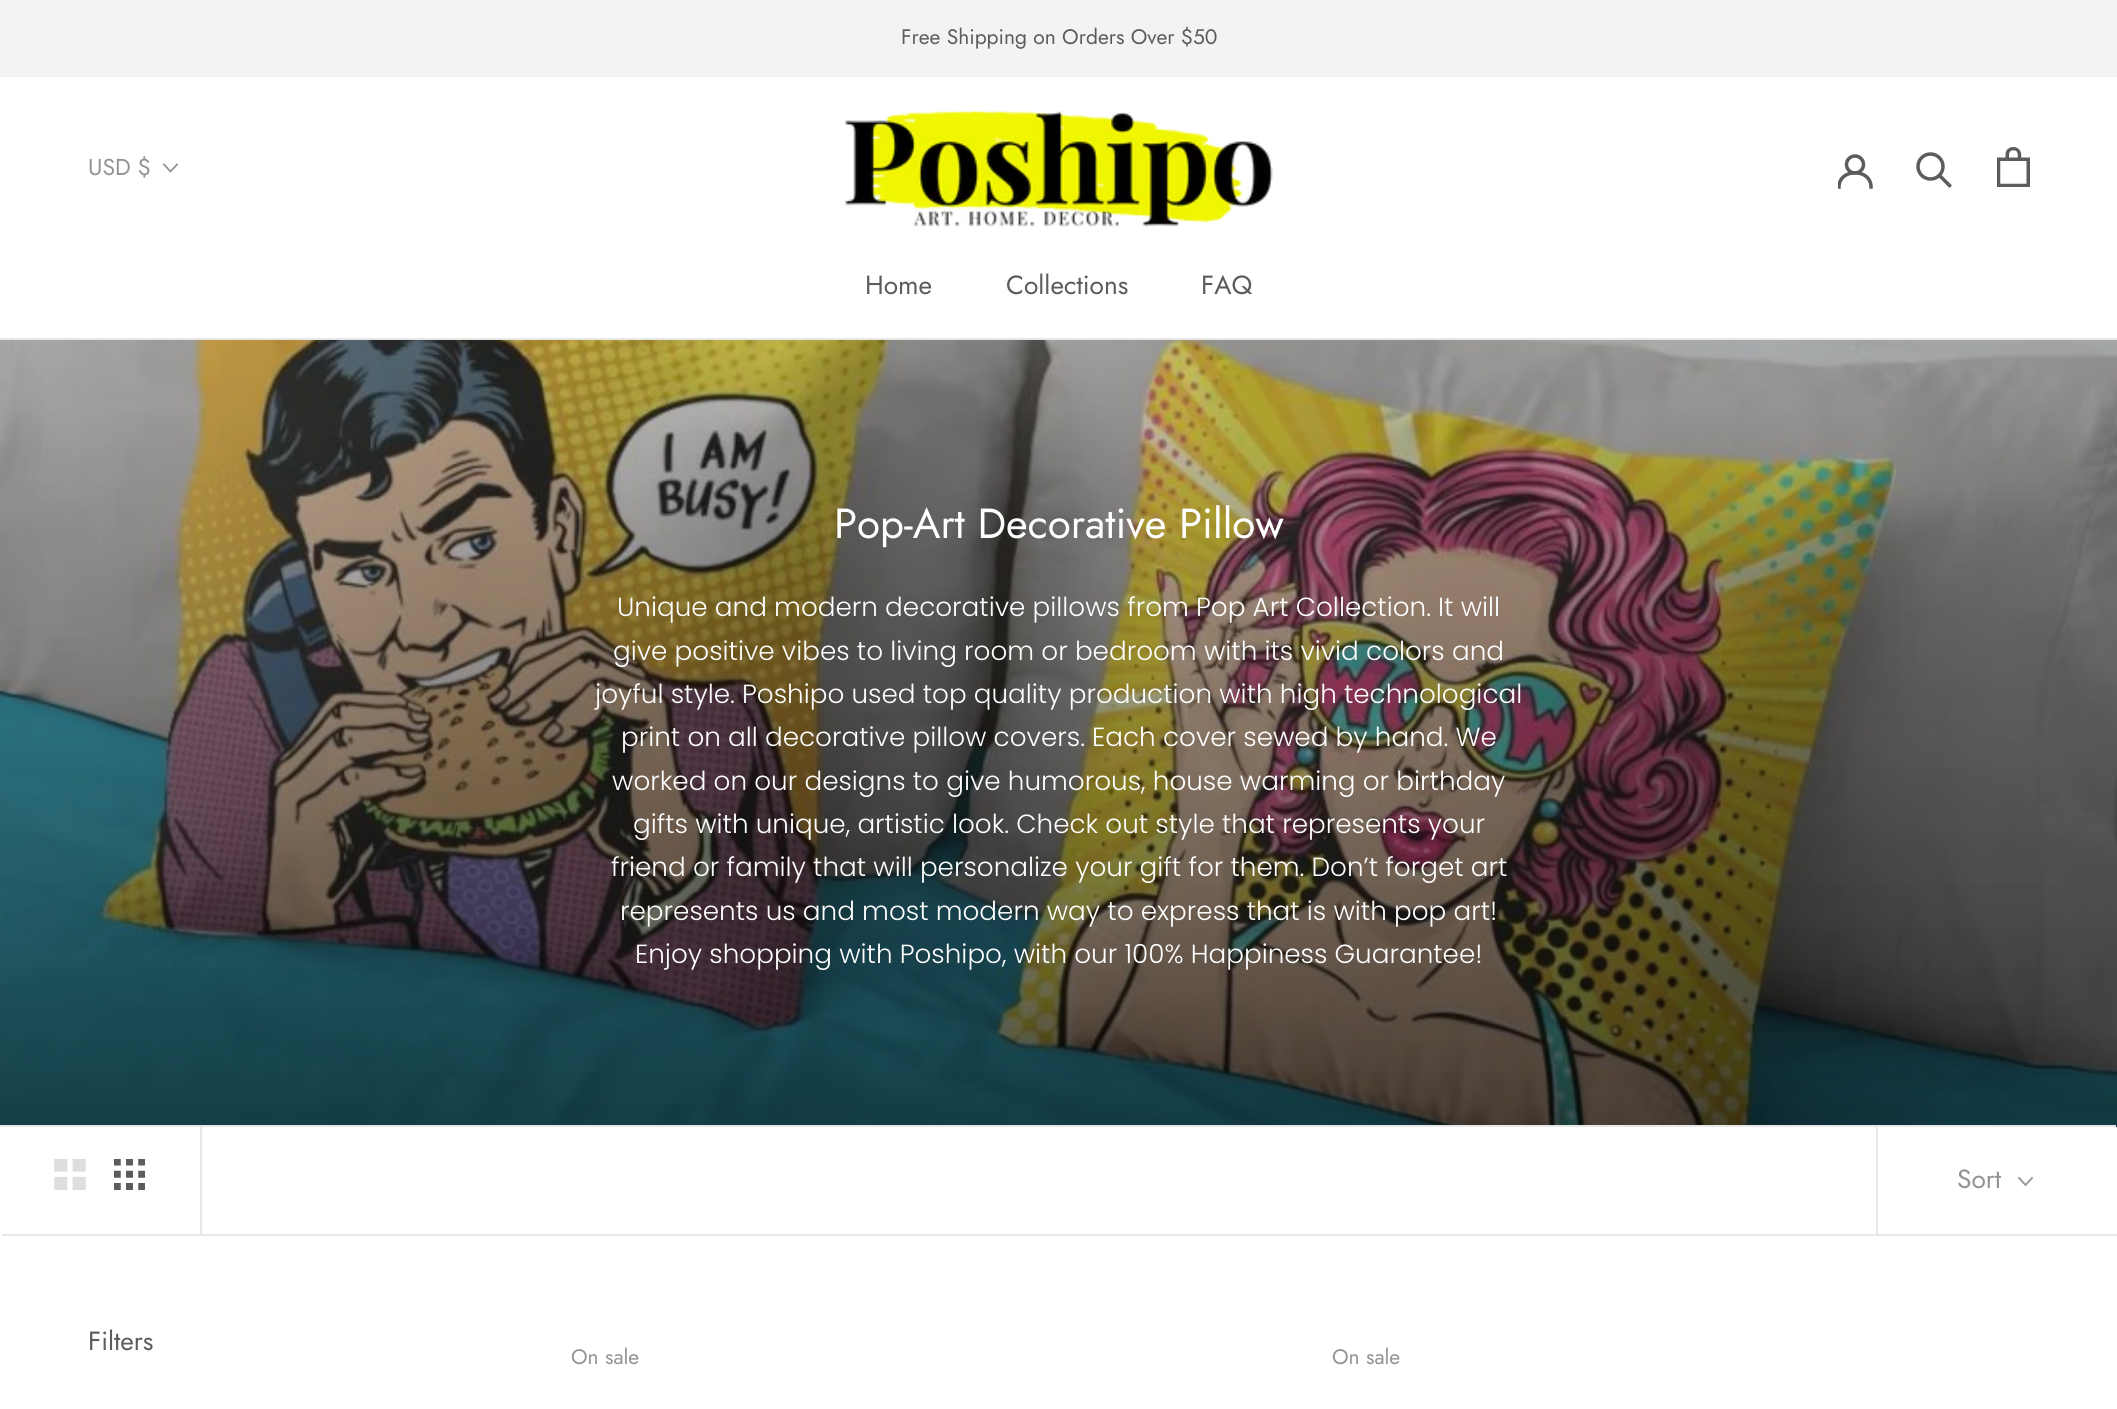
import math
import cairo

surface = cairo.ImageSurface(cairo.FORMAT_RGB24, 2117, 1409)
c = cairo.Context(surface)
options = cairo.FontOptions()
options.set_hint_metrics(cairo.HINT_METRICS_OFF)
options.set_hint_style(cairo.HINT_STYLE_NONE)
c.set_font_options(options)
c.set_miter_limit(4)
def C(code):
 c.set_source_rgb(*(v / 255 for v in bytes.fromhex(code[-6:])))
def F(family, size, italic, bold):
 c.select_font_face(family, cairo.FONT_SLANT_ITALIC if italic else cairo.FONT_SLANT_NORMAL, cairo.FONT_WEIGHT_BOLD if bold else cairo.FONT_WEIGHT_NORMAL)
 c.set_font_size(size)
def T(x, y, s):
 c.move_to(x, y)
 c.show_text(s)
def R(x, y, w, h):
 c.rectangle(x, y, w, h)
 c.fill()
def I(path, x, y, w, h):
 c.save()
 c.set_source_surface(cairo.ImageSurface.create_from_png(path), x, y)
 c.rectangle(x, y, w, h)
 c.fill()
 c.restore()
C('ffffff')
c.paint()
C('f3f3f3')
R(0,0,2117,77)
F('Jost',21,0,0)
C('5c5c5c')
T(901,44,'Free Shipping on Orders Over $50')
C('e7e7e7')
R(0,338,2117,2)
I('1.png',844,110,429,117)
c.save()
c.rectangle(1838,154,35,35)
c.clip()
c.new_path()
c.move_to(1839,187)
c.curve_to(1839,168,1871,168,1871,187)
C('5c5c5c')
c.set_line_width(3.5)
c.set_line_cap(cairo.LINE_CAP_SQUARE)
c.stroke()
c.restore()
c.arc(1855,164.5,8.5,0,2 * math.pi)
C('5c5c5c')
c.set_line_width(3.5)
c.stroke()
c.new_path()
c.move_to(1949.5,185.5)
c.line_to(1939.5,175.5)
c.set_line_cap(cairo.LINE_CAP_SQUARE)
c.stroke()
c.arc(1930.5,166.5,12.5,0,2 * math.pi)
c.set_line_cap(cairo.LINE_CAP_BUTT)
c.stroke()
I('2.png',1997,147,33,40)
F('Jost',23,0,0)
C('939393')
T(88,175,'USD $')
c.new_path()
c.move_to(177,164.5)
c.line_to(170.5,171.5)
c.line_to(164,164.5)
c.set_line_width(1.8)
c.set_line_cap(cairo.LINE_CAP_SQUARE)
c.stroke()
F('Jost',26.25,0,0)
C('5c5c5c')
T(865,294,'Home')
T(1006,294,'Collections')
T(1201,294,'FAQ')
I('3.png',0,340,2117,787)
gradient = cairo.LinearGradient(1059,1127,1059,263)
gradient.add_color_stop_rgba(0,0.016,0.016,0.016,.65)
gradient.add_color_stop_rgba(1,0.212,0.212,0.212,.2)
c.set_source(gradient)
R(0,340,2117,787)
F('Jost',42,0,0)
C('ffffff')
T(834,538,'Pop-Art Decorative Pillow')
F('Poppins Light',26.25,0,0)
T(617,616,'Unique and modern decorative pillows from Pop Art Collection. It will')
T(613,660,'give positive vibes to living room or bedroom with its vivid colors and')
T(595,703,'joyful style. Poshipo used top quality production with high technological')
T(621,746,'print on all decorative pillow covers. Each cover sewed by hand. We')
T(612,790,'worked on our designs to give humorous, house warming or birthday')
T(633,833,'gifts with unique, artistic look. Check out style that represents your')
T(611,876,'friend or family that will personalize your gift for them. Don’t forget art')
T(620,920,'represents us and most modern way to express that is with pop art!')
T(635,963,'Enjoy shopping with Poshipo, with our 100% Happiness Guarantee!')
C('e7e7e7')
c.new_path()
c.move_to(-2,1125)
c.line_to(-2,1232)
c.line_to(0,1232)
c.line_to(0,1127)
c.line_to(2116,1127)
c.line_to(2116,1125)
c.close_path()
c.fill()
c.new_path()
c.move_to(2,1234)
c.line_to(2,1236)
c.line_to(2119,1236)
c.line_to(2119,1129)
c.line_to(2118,1129)
c.line_to(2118,1234)
c.close_path()
c.fill()
R(200,1127,2,107)
I('4.png',54,1159,32,31)
I('5.png',114,1159,31,31)
R(1876,1127,2,107)
F('Jost',26.25,0,0)
C('939393')
T(1957,1188,'Sort')
c.new_path()
c.move_to(2032,1178)
c.line_to(2025.5,1185)
c.line_to(2019,1178)
c.stroke()
C('5c5c5c')
T(88,1350,'Filters')
F('Jost',21,0,0)
C('939393')
T(571,1364,'On sale')
T(1332,1364,'On sale')
surface.write_to_png('o.png')
